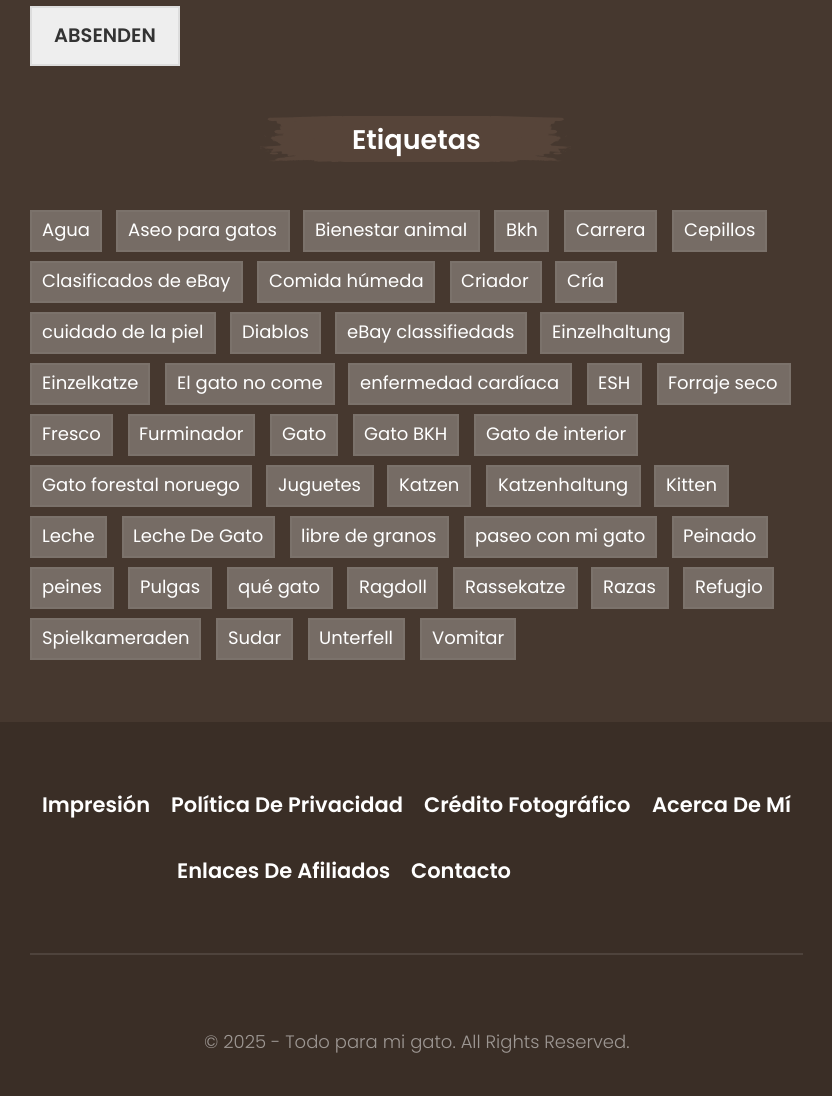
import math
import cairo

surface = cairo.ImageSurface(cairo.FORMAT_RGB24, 832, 1096)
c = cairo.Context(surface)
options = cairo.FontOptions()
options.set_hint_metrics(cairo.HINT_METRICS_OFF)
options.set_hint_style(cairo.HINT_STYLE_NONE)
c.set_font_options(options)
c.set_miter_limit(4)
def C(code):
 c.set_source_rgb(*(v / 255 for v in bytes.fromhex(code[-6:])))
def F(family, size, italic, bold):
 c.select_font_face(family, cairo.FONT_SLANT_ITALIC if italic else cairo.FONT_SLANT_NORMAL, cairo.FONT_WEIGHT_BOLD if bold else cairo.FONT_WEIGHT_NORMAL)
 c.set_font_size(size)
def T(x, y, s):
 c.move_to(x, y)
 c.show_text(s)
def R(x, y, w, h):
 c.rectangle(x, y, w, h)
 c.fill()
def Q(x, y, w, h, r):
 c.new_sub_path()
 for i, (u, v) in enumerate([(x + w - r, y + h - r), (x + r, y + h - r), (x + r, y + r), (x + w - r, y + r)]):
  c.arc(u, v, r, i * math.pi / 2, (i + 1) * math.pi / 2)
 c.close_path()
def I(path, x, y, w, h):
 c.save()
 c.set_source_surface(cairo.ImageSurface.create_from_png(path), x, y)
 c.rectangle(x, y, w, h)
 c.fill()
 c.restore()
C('3a2e26')
c.paint()
C('46382f')
R(0,0,832,722)
C('eeeeee')
c.rectangle(31,7,148,58)
c.fill_preserve()
C('dddddd')
c.stroke()
F('Poppins SemiBold',19.5,0,0)
C('333333')
T(54,42,'ABSENDEN')
C('564439')
Q(330,116,173,46,15)
c.fill()
I('1.png',260,116,82,46)
I('2.png',491,116,80,46)
F('Poppins SemiBold',27,0,0)
C('ffffff')
T(352,149,'Etiquetas')
C('766c65')
c.rectangle(31,211,70,40)
c.fill_preserve()
C('7b726b')
c.stroke()
F('Poppins',18,0,0)
C('ffffff')
T(42,236,'Agua')
C('766c65')
c.rectangle(117,211,172,40)
c.fill_preserve()
C('7b726b')
c.stroke()
C('ffffff')
T(128,236,'Aseo para gatos')
C('766c65')
c.rectangle(304,211,175,40)
c.fill_preserve()
C('7b726b')
c.stroke()
C('ffffff')
T(315,236,'Bienestar animal')
C('766c65')
c.rectangle(495,211,53,40)
c.fill_preserve()
C('7b726b')
c.stroke()
C('ffffff')
T(506,236,'Bkh')
C('766c65')
c.rectangle(565,211,91,40)
c.fill_preserve()
C('7b726b')
c.stroke()
C('ffffff')
T(576,236,'Carrera')
C('766c65')
c.rectangle(673,211,93,40)
c.fill_preserve()
C('7b726b')
c.stroke()
C('ffffff')
T(684,236,'Cepillos')
C('766c65')
c.rectangle(31,262,211,40)
c.fill_preserve()
C('7b726b')
c.stroke()
C('ffffff')
T(42,287,'Clasificados de eBay')
C('766c65')
c.rectangle(258,262,176,40)
c.fill_preserve()
C('7b726b')
c.stroke()
C('ffffff')
T(269,287,'Comida húmeda')
C('766c65')
c.rectangle(451,262,90,40)
c.fill_preserve()
C('7b726b')
c.stroke()
C('ffffff')
T(461,287,'Criador')
C('766c65')
c.rectangle(556,262,60,40)
c.fill_preserve()
C('7b726b')
c.stroke()
C('ffffff')
T(567,287,'Cría')
C('766c65')
c.rectangle(31,313,184,40)
c.fill_preserve()
C('7b726b')
c.stroke()
C('ffffff')
T(42,338,'cuidado de la piel')
C('766c65')
c.rectangle(231,313,89,40)
c.fill_preserve()
C('7b726b')
c.stroke()
C('ffffff')
T(242,338,'Diablos')
C('766c65')
c.rectangle(336,313,190,40)
c.fill_preserve()
C('7b726b')
c.stroke()
C('ffffff')
T(347,338,'eBay classifiedads')
C('766c65')
c.rectangle(541,313,142,40)
c.fill_preserve()
C('7b726b')
c.stroke()
C('ffffff')
T(552,338,'Einzelhaltung')
C('766c65')
c.rectangle(31,364,118,40)
c.fill_preserve()
C('7b726b')
c.stroke()
C('ffffff')
T(42,389,'Einzelkatze')
C('766c65')
c.rectangle(166,364,168,40)
c.fill_preserve()
C('7b726b')
c.stroke()
C('ffffff')
T(177,389,'El gato no come')
C('766c65')
c.rectangle(349,364,222,40)
c.fill_preserve()
C('7b726b')
c.stroke()
C('ffffff')
T(360,389,'enfermedad cardíaca')
C('766c65')
c.rectangle(588,364,53,40)
c.fill_preserve()
C('7b726b')
c.stroke()
C('ffffff')
T(598,389,'ESH')
C('766c65')
c.rectangle(658,364,132,40)
c.fill_preserve()
C('7b726b')
c.stroke()
C('ffffff')
T(668,389,'Forraje seco')
C('766c65')
c.rectangle(31,415,81,40)
c.fill_preserve()
C('7b726b')
c.stroke()
C('ffffff')
T(42,440,'Fresco')
C('766c65')
c.rectangle(129,415,125,40)
c.fill_preserve()
C('7b726b')
c.stroke()
C('ffffff')
T(139,440,'Furminador')
C('766c65')
c.rectangle(271,415,66,40)
c.fill_preserve()
C('7b726b')
c.stroke()
C('ffffff')
T(282,440,'Gato')
C('766c65')
c.rectangle(354,415,104,40)
c.fill_preserve()
C('7b726b')
c.stroke()
C('ffffff')
T(364,440,'Gato BKH')
C('766c65')
c.rectangle(475,415,162,40)
c.fill_preserve()
C('7b726b')
c.stroke()
C('ffffff')
T(486,440,'Gato de interior')
C('766c65')
c.rectangle(31,466,220,40)
c.fill_preserve()
C('7b726b')
c.stroke()
C('ffffff')
T(42,491,'Gato forestal noruego')
C('766c65')
c.rectangle(267,466,106,40)
c.fill_preserve()
C('7b726b')
c.stroke()
C('ffffff')
T(278,491,'Juguetes')
C('766c65')
c.rectangle(388,466,82,40)
c.fill_preserve()
C('7b726b')
c.stroke()
C('ffffff')
T(399,491,'Katzen')
C('766c65')
c.rectangle(487,466,153,40)
c.fill_preserve()
C('7b726b')
c.stroke()
C('ffffff')
T(498,491,'Katzenhaltung')
C('766c65')
c.rectangle(655,466,73,40)
c.fill_preserve()
C('7b726b')
c.stroke()
C('ffffff')
T(666,491,'Kitten')
C('766c65')
c.rectangle(31,517,75,40)
c.fill_preserve()
C('7b726b')
c.stroke()
C('ffffff')
T(42,542,'Leche')
C('766c65')
c.rectangle(123,517,151,40)
c.fill_preserve()
C('7b726b')
c.stroke()
C('ffffff')
T(133,542,'Leche De Gato')
C('766c65')
c.rectangle(291,517,157,40)
c.fill_preserve()
C('7b726b')
c.stroke()
C('ffffff')
T(301,542,'libre de granos')
C('766c65')
c.rectangle(465,517,191,40)
c.fill_preserve()
C('7b726b')
c.stroke()
C('ffffff')
T(475,542,'paseo con mi gato')
C('766c65')
c.rectangle(673,517,94,40)
c.fill_preserve()
C('7b726b')
c.stroke()
C('ffffff')
T(683,542,'Peinado')
C('766c65')
c.rectangle(31,568,82,40)
c.fill_preserve()
C('7b726b')
c.stroke()
C('ffffff')
T(42,593,'peines')
C('766c65')
c.rectangle(129,568,82,40)
c.fill_preserve()
C('7b726b')
c.stroke()
C('ffffff')
T(140,593,'Pulgas')
C('766c65')
c.rectangle(228,568,104,40)
c.fill_preserve()
C('7b726b')
c.stroke()
C('ffffff')
T(238,593,'qué gato')
C('766c65')
c.rectangle(348,568,89,40)
c.fill_preserve()
C('7b726b')
c.stroke()
C('ffffff')
T(359,593,'Ragdoll')
C('766c65')
c.rectangle(454,568,123,40)
c.fill_preserve()
C('7b726b')
c.stroke()
C('ffffff')
T(465,593,'Rassekatze')
C('766c65')
c.rectangle(592,568,76,40)
c.fill_preserve()
C('7b726b')
c.stroke()
C('ffffff')
T(603,593,'Razas')
C('766c65')
c.rectangle(684,568,89,40)
c.fill_preserve()
C('7b726b')
c.stroke()
C('ffffff')
T(695,593,'Refugio')
C('766c65')
c.rectangle(31,619,169,40)
c.fill_preserve()
C('7b726b')
c.stroke()
C('ffffff')
T(42,644,'Spielkameraden')
C('766c65')
c.rectangle(217,619,75,40)
c.fill_preserve()
C('7b726b')
c.stroke()
C('ffffff')
T(228,644,'Sudar')
C('766c65')
c.rectangle(309,619,95,40)
c.fill_preserve()
C('7b726b')
c.stroke()
C('ffffff')
T(319,644,'Unterfell')
C('766c65')
c.rectangle(421,619,94,40)
c.fill_preserve()
C('7b726b')
c.stroke()
C('ffffff')
T(432,644,'Vomitar')
C('4e433c')
R(30,953,773,2)
F('Poppins SemiBold',21,0,0)
C('ffffff')
T(42,812,'Impresión')
T(171,812,'Política De Privacidad')
T(424,812,'Crédito Fotográfico')
T(652,812,'Acerca De Mí')
T(177,878,'Enlaces De Afiliados')
T(411,878,'Contacto')
F('Poppins Light',18,0,0)
C('9d9793')
T(204,1048,'© 2025 - Todo para mi gato. All Rights Reserved.')
surface.write_to_png('o.png')
